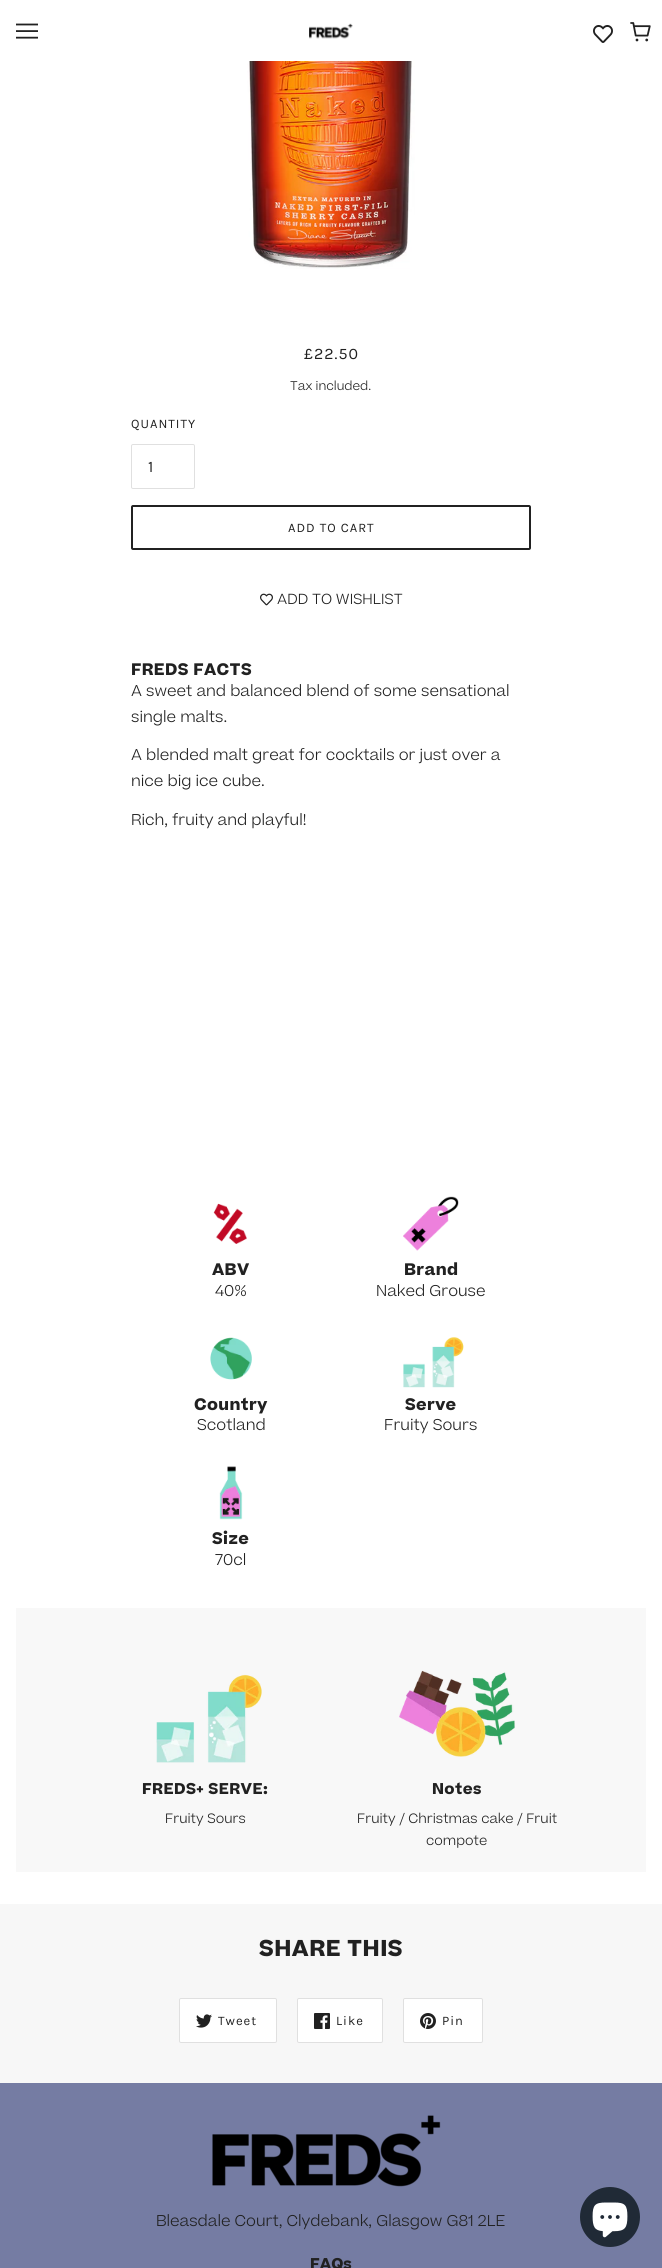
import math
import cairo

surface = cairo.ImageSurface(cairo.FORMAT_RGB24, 662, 2268)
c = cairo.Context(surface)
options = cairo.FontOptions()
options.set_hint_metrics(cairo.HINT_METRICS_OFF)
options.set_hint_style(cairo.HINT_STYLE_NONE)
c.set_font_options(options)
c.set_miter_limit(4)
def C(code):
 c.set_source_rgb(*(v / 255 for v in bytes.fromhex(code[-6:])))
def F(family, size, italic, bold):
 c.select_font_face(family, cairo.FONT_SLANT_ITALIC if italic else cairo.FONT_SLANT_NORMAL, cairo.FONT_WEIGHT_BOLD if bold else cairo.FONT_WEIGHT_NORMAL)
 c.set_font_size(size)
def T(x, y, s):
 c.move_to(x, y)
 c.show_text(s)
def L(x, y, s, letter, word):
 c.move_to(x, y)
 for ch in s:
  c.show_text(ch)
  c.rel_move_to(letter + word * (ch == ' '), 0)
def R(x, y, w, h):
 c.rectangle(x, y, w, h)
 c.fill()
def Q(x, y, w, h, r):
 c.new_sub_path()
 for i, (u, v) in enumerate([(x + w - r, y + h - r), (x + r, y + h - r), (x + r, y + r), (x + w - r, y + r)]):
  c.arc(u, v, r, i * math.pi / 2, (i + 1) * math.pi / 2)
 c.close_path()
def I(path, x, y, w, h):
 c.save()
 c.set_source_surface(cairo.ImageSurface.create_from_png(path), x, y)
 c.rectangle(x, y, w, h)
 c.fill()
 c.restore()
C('ffffff')
c.paint()
I('1.png',16,23,22,16)
I('2.png',309,23,44,16)
I('3.png',593,25,20,18)
I('4.png',630,22,21,20)
I('5.png',247,61,168,208)
F('Karla',16,0,0)
C('212121')
L(304,359,'£22.50',1,0)
F('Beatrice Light',12,0,0)
T(290,390,'Tax included.')
F('Karla',13,0,0)
L(131,428,'QUANTITY',1,0)
Q(131.5,444.5,63,44,1.5)
C('e0e0e0')
c.set_line_width(1)
c.stroke()
F('Karla',16,0,0)
C('212121')
L(148,472,'1',1,0)
Q(132,506,398,43,1)
c.set_line_width(2)
c.stroke()
F('Karla',13,0,0)
L(288,532,'ADD TO CART',1,0)
I('6.png',260,593,13,13)
F('Beatrice Light',14,0,0)
T(277,604,'ADD TO WISHLIST')
F('Beatrice',16,0,1)
L(131,675,'FREDS FACTS',.4,0)
F('Beatrice Light',15,0,0)
T(131,696,'A sweet and balanced blend of some sensational')
T(131,722,'single malts.')
T(131,760,'A blended malt great for cocktails or just over a')
T(131,786,'nice big ice cube.')
T(131,825,'Rich, fruity and playful!')
I('7.png',213,1203,34,41)
F('Beatrice',16,0,1)
L(212,1275,'ABV',.4,0)
F('Beatrice Light',15,0,0)
T(215,1296,'40%')
I('8.png',403,1196,56,55)
F('Beatrice',16,0,1)
L(404,1275,'Brand',.4,0)
F('Beatrice Light',15,0,0)
T(376,1296,'Naked Grouse')
I('9.png',210,1337,42,43)
F('Beatrice',16,0,1)
L(194,1410,'Country',.4,0)
F('Beatrice Light',15,0,0)
T(197,1430,'Scotland')
I('10.png',403,1337,61,51)
F('Beatrice',16,0,1)
L(405,1410,'Serve',.4,0)
F('Beatrice Light',15,0,0)
T(384,1430,'Fruity Sours')
I('11.png',219,1466,24,54)
F('Beatrice',16,0,1)
L(212,1544,'Size',.4,0)
F('Beatrice Light',15,0,0)
T(215,1565,'70cl')
C('f8f8f8')
R(16,1608,630,264)
I('12.png',156,1674,106,89)
F('Beatrice',15,0,1)
C('212121')
L(142,1794,'FREDS+ SERVE:',.4,0)
F('Beatrice Light',13,0,0)
T(165,1823,'Fruity Sours')
I('13.png',399,1670,116,87)
F('Beatrice',15,0,1)
L(432,1794,'Notes',.4,0)
F('Beatrice Light',13,0,0)
T(357,1823,'Fruity / Christmas cake / Fruit')
T(426,1845,'compote')
C('f7f7f7')
R(0,1904,662,179)
F('Beatrice',22,0,1)
C('212121')
L(259,1956,'SHARE THIS',.5,0)
C('ffffff')
Q(179.5,1998.5,97,44,1.5)
c.fill_preserve()
C('e0e0e0')
c.set_line_width(1)
c.stroke()
I('14.png',196,2014,16,14)
F('Karla',13,0,0)
C('212121')
L(218,2025,'Tweet',1,0)
C('ffffff')
Q(297.5,1998.5,85,44,1.5)
c.fill_preserve()
C('e0e0e0')
c.stroke()
I('15.png',314,2013,16,16)
C('212121')
L(336,2025,'Like',1,0)
C('ffffff')
Q(403.5,1998.5,79,44,1.5)
c.fill_preserve()
C('e0e0e0')
c.stroke()
I('16.png',420,2013,16,16)
C('212121')
L(442,2025,'Pin',1,0)
C('757ca3')
R(0,2083,662,185)
I('17.png',212,2115,229,72)
F('Beatrice Light',15,0,0)
C('212121')
T(156,2226,'Bleasdale Court, Clydebank, Glasgow G81 2LE')
F('Beatrice',15,0,1)
T(310,2269,'FAQs')
C('202a36')
c.new_path()
c.arc(610,2217,30,0,2 * math.pi)
c.fill()
I('18.png',592,2202,36,36)
surface.write_to_png('o.png')
